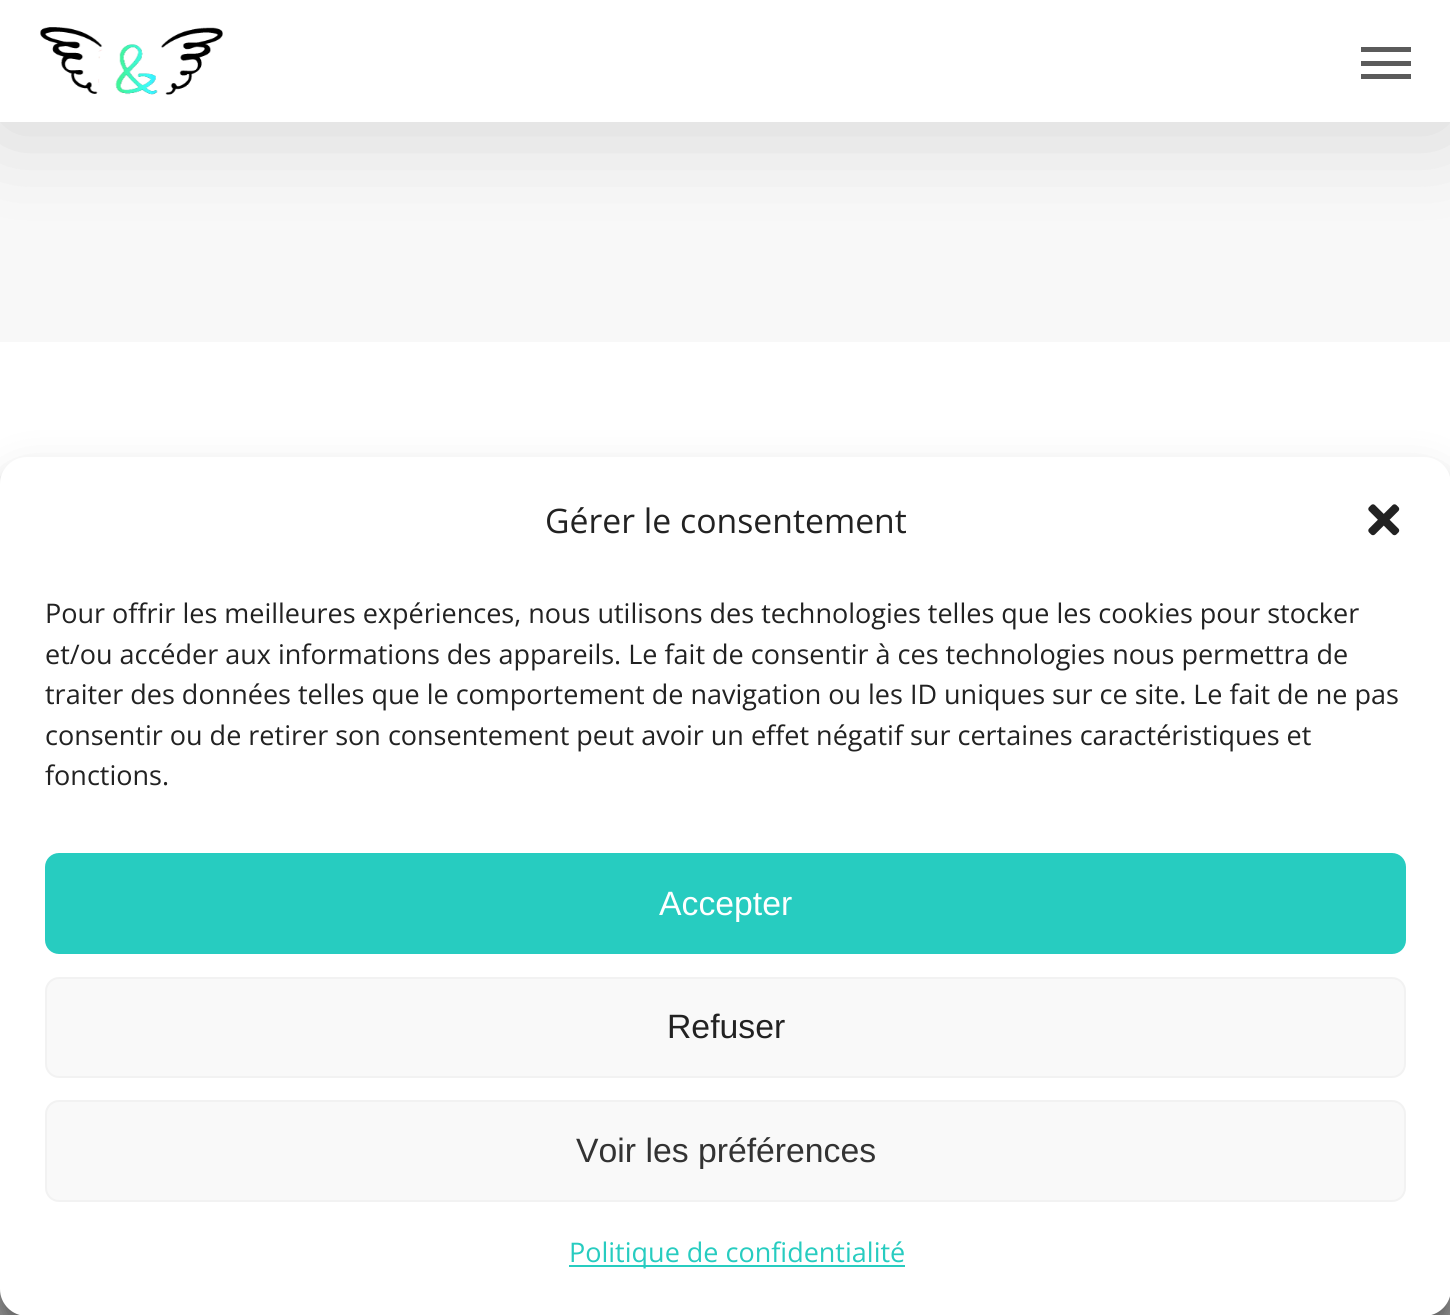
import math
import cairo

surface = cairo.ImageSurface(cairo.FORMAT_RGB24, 1450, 1315)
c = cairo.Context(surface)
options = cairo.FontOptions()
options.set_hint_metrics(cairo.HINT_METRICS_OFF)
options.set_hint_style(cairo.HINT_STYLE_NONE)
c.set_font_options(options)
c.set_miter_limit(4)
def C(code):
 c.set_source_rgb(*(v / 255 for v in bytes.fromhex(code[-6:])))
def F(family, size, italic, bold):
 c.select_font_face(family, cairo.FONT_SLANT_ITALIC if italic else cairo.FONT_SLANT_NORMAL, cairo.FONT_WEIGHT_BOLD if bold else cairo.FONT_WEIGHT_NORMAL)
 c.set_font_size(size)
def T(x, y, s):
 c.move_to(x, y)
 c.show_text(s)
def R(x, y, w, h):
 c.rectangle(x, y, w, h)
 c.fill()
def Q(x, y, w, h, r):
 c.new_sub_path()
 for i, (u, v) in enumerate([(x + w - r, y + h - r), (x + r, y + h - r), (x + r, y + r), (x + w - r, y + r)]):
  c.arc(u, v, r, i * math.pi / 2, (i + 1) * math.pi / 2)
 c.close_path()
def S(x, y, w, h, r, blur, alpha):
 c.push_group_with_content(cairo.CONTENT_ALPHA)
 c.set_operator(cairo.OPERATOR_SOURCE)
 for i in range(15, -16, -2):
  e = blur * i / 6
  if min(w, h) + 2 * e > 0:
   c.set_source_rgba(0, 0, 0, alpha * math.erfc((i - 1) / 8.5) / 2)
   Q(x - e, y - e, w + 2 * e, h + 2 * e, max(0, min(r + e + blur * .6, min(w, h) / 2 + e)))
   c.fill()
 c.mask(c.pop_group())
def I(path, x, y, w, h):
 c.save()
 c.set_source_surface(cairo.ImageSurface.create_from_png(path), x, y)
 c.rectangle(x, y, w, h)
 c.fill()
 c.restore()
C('ffffff')
c.paint()
C('f8f8f8')
R(0,122,1450,220)
C('000000')
S(0,7,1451,121,0,50.5,.15)
C('ffffff')
R(0,0,1450,122)
I('1.png',40,27,183,68)
C('5b5b5b')
R(1361,47,50,5)
R(1361,74,50,5)
R(1361,61,50,5)
C('9b9b9b')
R(0,1289,1450,26)
C('000000')
S(0,470,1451,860,27,7,.23)
S(0,479,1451,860,27,22.5,.19)
C('ffffff')
Q(0,457,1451,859,27)
c.fill()
F('Open Sans',33.75,0,0)
C('222222')
T(545,533,'Gérer le consentement')
I('2.png',1368,504,32,32)
F('Open Sans',27,0,0)
T(45,623,'Pour offrir les meilleures expériences, nous utilisons des technologies telles que les cookies pour stocker')
T(45,664,'et/ou accéder aux informations des appareils. Le fait de consentir à ces technologies nous permettra de')
T(45,704,'traiter des données telles que le comportement de navigation ou les ID uniques sur ce site. Le fait de ne pas')
T(45,745,'consentir ou de retirer son consentement peut avoir un effet négatif sur certaines caractéristiques et')
T(45,785,'fonctions.')
C('27ccc0')
Q(46,854,1359,99,13)
c.fill_preserve()
c.stroke()
F('Liberation Sans',33.75,0,0)
C('ffffff')
T(659,915,'Accepter')
C('f9f9f9')
Q(46,978,1359,99,13)
c.fill_preserve()
C('f2f2f2')
c.stroke()
C('222222')
T(667,1038,'Refuser')
C('f9f9f9')
Q(46,1101,1359,100,13)
c.fill_preserve()
C('f2f2f2')
c.stroke()
C('333333')
T(576,1162,'Voir les préférences')
C('27ccc0')
R(569,1265,336,2)
F('Open Sans',27,0,0)
T(569,1262,'Politique de confidentialité')
surface.write_to_png('o.png')
